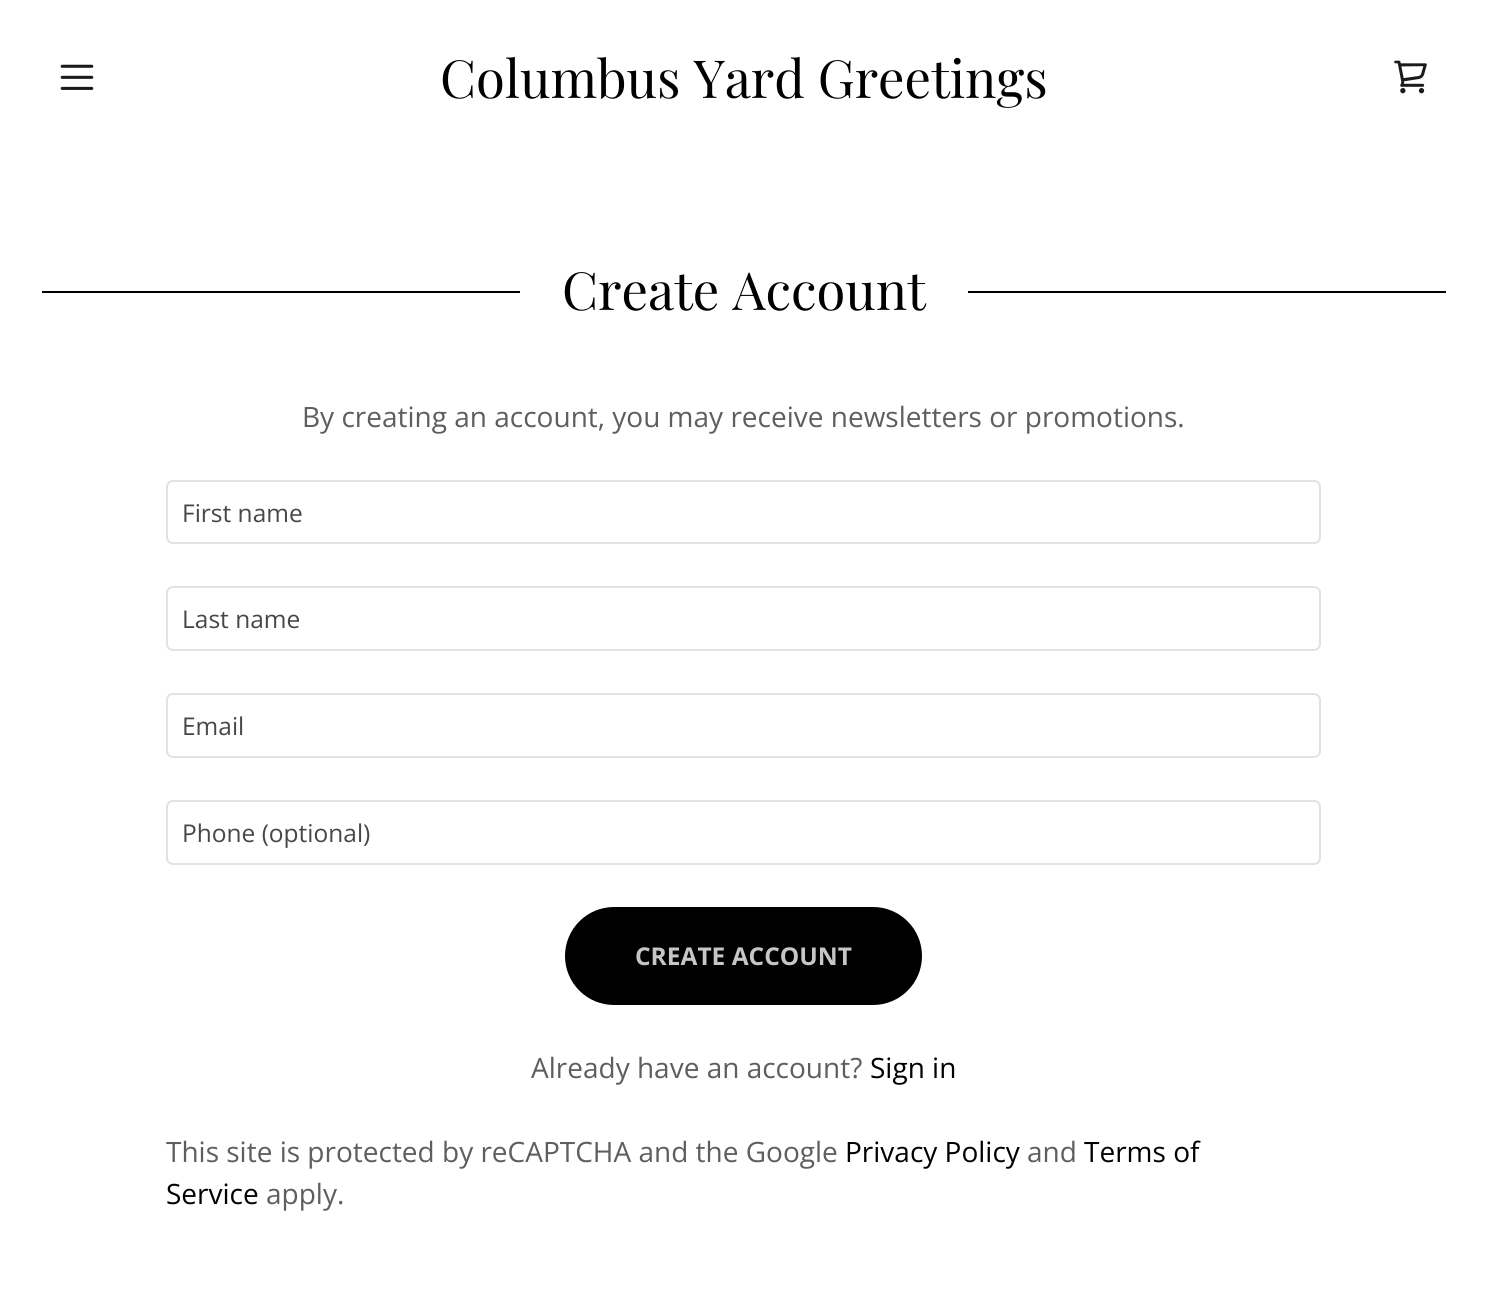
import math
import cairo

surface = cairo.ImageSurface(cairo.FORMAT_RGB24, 1486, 1309)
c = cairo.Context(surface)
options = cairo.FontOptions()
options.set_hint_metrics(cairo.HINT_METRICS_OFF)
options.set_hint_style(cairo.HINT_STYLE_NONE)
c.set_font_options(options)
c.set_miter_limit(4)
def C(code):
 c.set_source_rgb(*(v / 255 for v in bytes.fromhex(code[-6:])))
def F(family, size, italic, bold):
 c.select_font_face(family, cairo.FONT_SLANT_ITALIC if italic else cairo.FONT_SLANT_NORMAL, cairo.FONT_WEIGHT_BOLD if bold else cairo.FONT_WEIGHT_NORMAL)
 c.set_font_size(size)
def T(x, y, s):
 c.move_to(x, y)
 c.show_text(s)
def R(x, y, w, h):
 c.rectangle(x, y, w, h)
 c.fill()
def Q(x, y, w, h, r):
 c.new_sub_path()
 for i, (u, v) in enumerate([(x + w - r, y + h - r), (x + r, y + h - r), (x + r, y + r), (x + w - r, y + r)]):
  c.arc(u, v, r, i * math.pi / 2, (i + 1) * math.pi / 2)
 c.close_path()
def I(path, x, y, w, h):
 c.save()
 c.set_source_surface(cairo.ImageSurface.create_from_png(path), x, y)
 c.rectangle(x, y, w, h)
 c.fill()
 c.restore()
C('ffffff')
c.paint()
I('1.png',60,64,34,26)
F('Playfair Display',52.5,0,0)
C('000000')
T(440,98,'Columbus Yard Greetings')
I('2.png',1394,60,33,34)
R(42,291,478,2)
T(562,310,'Create Account')
R(968,291,478,2)
F('Open Sans',28,0,0)
C('5e5e5e')
T(302,427,'By creating an account, you may receive newsletters or promotions.')
Q(167,481,1153,62,6)
C('e2e2e2')
c.stroke()
F('Open Sans',24.5,0,0)
C('474747')
T(182,522,'First name')
Q(167,587,1153,63,6)
C('e2e2e2')
c.stroke()
C('474747')
T(182,628,'Last name')
Q(167,694,1153,63,6)
C('e2e2e2')
c.stroke()
C('474747')
T(182,735,'Email')
Q(167,801,1153,63,6)
C('e2e2e2')
c.stroke()
C('474747')
T(182,842,'Phone (optional)')
C('000000')
Q(565,907,357,98,49)
c.fill()
F('Open Sans',24.5,0,1)
C('c6c6c6')
T(635,965,'CREATE ACCOUNT')
F('Open Sans',28,0,0)
C('5e5e5e')
T(531,1078,'Already have an account?')
C('000000')
T(870,1078,'Sign in')
C('5e5e5e')
T(166,1162,'This site is protected by reCAPTCHA and the Google')
C('000000')
T(845,1162,'Privacy Policy')
C('5e5e5e')
T(1027,1162,'and')
C('000000')
T(1084,1162,'Terms of')
T(166,1204,'Service')
C('5e5e5e')
T(266,1204,'apply.')
surface.write_to_png('o.png')
